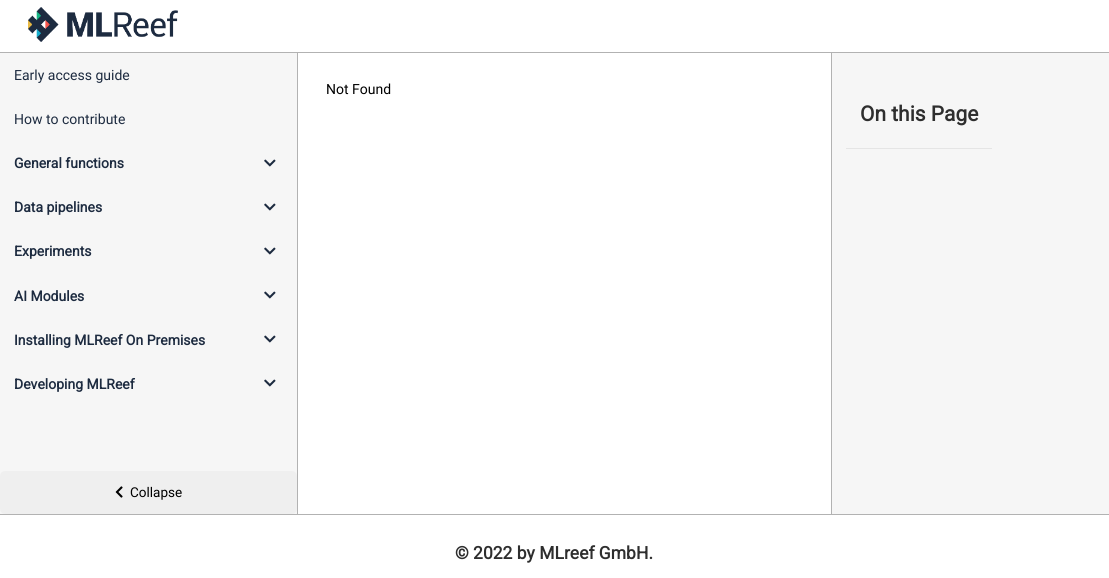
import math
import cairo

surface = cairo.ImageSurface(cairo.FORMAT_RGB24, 1109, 578)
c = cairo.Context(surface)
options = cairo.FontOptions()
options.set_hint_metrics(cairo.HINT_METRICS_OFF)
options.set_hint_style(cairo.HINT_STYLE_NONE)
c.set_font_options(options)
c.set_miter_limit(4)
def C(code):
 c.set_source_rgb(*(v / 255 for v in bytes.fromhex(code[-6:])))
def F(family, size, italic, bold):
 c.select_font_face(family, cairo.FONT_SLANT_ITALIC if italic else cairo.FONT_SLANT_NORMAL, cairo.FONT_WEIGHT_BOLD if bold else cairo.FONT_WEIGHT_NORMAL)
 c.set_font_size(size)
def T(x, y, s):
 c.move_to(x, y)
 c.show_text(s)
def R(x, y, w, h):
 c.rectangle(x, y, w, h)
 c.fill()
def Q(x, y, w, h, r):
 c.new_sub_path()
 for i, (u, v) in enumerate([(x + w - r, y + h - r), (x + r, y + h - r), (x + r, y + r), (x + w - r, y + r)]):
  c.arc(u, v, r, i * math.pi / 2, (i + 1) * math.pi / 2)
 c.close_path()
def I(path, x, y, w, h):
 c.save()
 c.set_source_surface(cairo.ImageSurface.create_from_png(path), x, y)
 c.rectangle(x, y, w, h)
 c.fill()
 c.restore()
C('ffffff')
c.paint()
C('b2b2b2')
R(0,52,1109,1)
I('1.png',28,7,150,35)
C('f6f6f6')
R(0,53,297,461)
F('Roboto',14,0,0)
C('1d2b40')
T(14,80,'Early access guide')
T(14,124,'How to contribute')
F('Roboto',14,0,1)
T(14,168,'General functions')
I('2.png',264,159,12,8)
T(14,212,'Data pipelines')
I('2.png',264,203,12,8)
T(14,256,'Experiments')
I('2.png',264,247,12,8)
T(14,301,'AI Modules')
I('2.png',264,291,12,8)
T(14,345,'Installing MLReef On Premises')
I('2.png',264,335,12,8)
T(14,389,'Developing MLReef')
I('2.png',264,379,12,8)
C('efefef')
Q(0,471,297,43,5)
c.fill()
I('3.png',115,486,8,12)
F('Roboto',13.5,0,0)
C('000000')
T(130,497,'Collapse')
C('b2b2b2')
R(831,53,1,461)
R(297,53,1,461)
F('Roboto',14,0,0)
C('000000')
T(326,94,'Not Found')
C('f6f6f6')
R(832,53,277,461)
F('Roboto',21,0,1)
C('2e2e2e')
T(860,121,'On this Page')
C('e5e5e5')
R(846,148,146,1)
C('b2b2b2')
R(0,514,1109,1)
F('Roboto',17.5,0,1)
C('2e2e2e')
T(455,559,'© 2022 by MLreef GmbH.')
surface.write_to_png('o.png')
